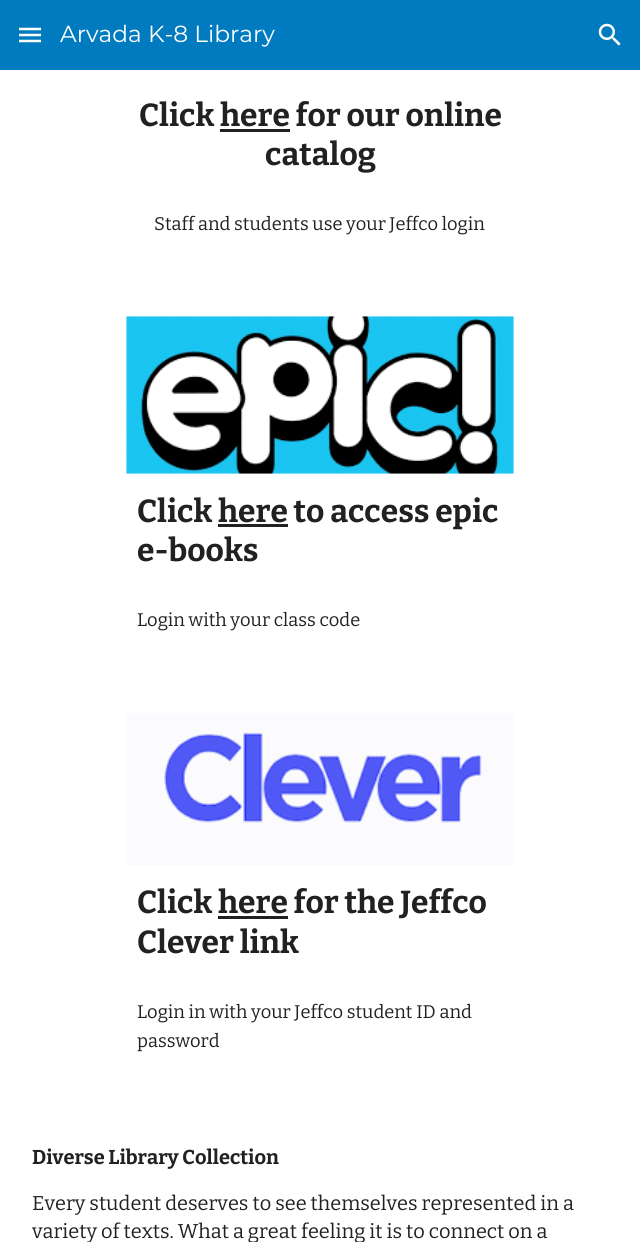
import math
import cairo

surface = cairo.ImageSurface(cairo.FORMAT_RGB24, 640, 1242)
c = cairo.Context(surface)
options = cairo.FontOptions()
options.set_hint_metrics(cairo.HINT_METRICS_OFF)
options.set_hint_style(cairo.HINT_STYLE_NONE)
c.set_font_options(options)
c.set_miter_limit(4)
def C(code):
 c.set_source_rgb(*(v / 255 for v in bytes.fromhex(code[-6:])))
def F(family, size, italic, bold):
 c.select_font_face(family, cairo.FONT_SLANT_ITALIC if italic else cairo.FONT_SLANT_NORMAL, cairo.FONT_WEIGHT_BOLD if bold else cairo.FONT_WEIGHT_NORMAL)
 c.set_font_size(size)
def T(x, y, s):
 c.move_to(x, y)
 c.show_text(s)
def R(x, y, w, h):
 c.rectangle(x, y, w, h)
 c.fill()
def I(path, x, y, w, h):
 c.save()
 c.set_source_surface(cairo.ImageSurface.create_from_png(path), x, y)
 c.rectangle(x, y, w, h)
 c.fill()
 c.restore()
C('ffffff')
c.paint()
C('007bbf')
R(0,0,640,70)
c.new_path()
c.move_to(19,29)
c.line_to(41,29)
c.move_to(19,35)
c.line_to(41,35)
c.move_to(19,41)
c.line_to(41,41)
C('ffffff')
c.set_line_width(2.5)
c.stroke()
F('Montserrat',23.25,0,0)
T(60,42,'Arvada K-8 Library')
I('1.png',598,23,23,23)
F('Bitter',31.75,0,1)
C('212121')
T(139,126,'Click here for our online')
R(220,129,70,3)
T(265,165,'catalog')
F('Bitter',18.3,0,0)
T(154,230,'Staff and students use your Jeffco login')
I('2.png',126,316,388,158)
F('Bitter',31.75,0,1)
T(137,522,'Click here to access epic')
R(218,524,70,3)
T(137,561,'e-books')
F('Bitter',18.3,0,0)
T(137,626,'Login with your class code')
I('3.png',127,713,386,153)
F('Bitter',31.75,0,1)
T(137,913,'Click here for the Jeffco')
R(218,916,70,3)
T(137,953,'Clever link')
F('Bitter',18.3,0,0)
T(137,1018,'Login in with your Jeffco student ID and')
T(137,1047,'password')
F('Bitter',20,0,1)
T(32,1164,'Diverse Library Collection')
F('Bitter',20,0,0)
T(32,1210,'Every student deserves to see themselves represented in a')
T(32,1238,'variety of texts. What a great feeling it is to connect on a')
surface.write_to_png('o.png')
